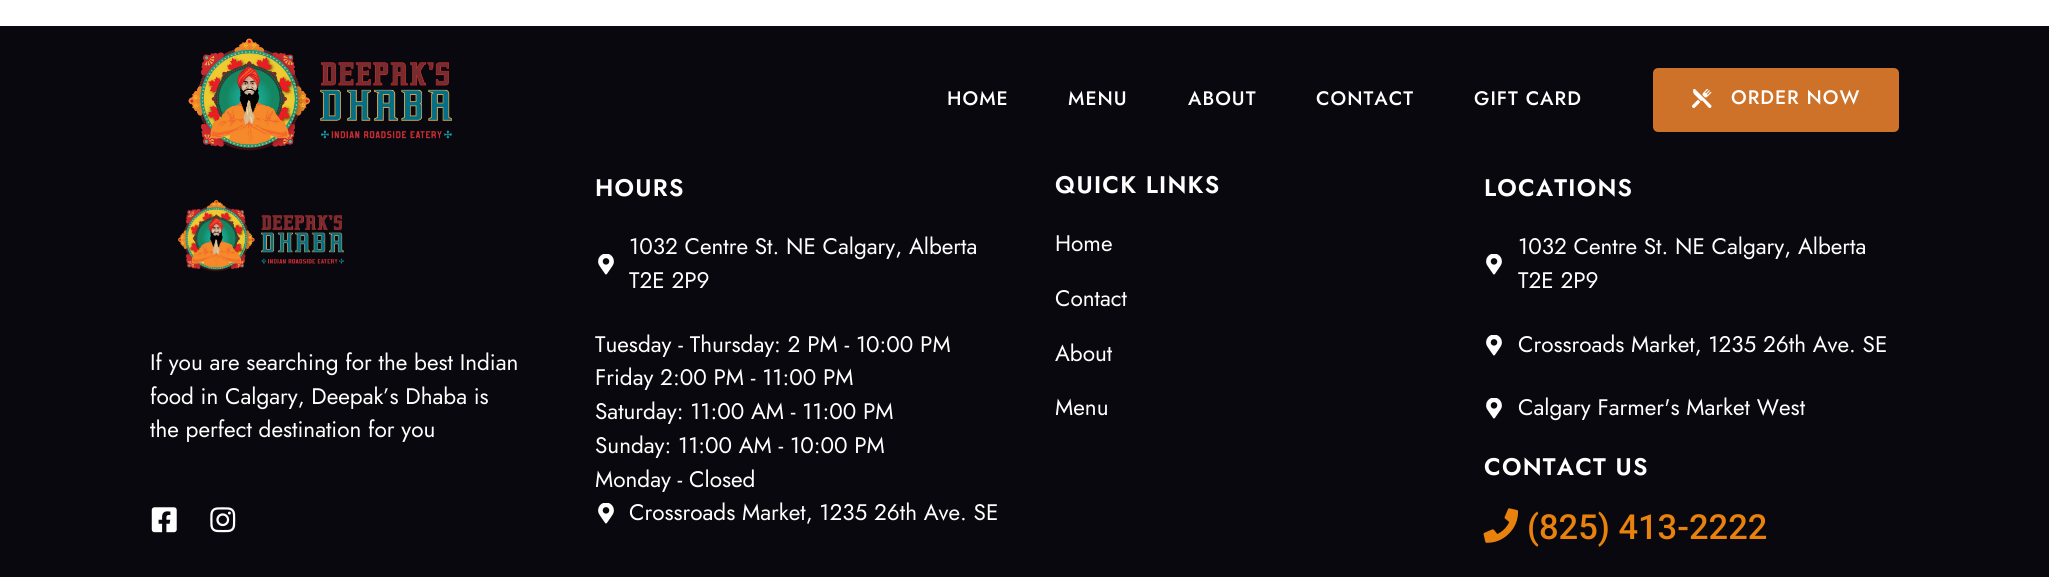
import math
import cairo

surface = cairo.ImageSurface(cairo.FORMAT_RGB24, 2049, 577)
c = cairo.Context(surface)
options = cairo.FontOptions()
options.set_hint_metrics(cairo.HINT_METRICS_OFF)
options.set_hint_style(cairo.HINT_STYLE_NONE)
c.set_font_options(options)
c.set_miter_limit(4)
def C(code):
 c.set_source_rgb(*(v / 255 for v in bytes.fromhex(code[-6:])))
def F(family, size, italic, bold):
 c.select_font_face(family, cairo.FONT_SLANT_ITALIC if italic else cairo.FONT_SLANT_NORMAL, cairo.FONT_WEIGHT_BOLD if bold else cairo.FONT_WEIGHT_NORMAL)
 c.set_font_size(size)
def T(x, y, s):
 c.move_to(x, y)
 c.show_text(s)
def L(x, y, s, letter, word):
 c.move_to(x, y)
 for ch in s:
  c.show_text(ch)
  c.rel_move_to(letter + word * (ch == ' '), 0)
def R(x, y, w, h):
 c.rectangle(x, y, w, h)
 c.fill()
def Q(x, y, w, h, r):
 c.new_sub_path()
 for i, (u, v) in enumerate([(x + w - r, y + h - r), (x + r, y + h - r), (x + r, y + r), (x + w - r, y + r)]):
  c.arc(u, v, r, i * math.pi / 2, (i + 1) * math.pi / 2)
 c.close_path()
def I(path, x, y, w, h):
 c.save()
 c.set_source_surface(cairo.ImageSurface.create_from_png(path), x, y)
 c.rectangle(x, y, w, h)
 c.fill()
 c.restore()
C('ffffff')
c.paint()
C('09080e')
R(0,26,2049,551)
I('1.png',188,38,264,113)
F('Jost Medium',19.5,0,0)
C('ffffff')
L(947,105,'HOME',1,0)
L(1068,105,'MENU',1,0)
L(1188,105,'ABOUT',1,0)
L(1316,105,'CONTACT',1,0)
L(1474,105,'GIFT CARD',1,0)
C('ce7229')
Q(1654.5,69.5,243,61,3.5)
c.fill_preserve()
c.set_line_width(3)
c.stroke()
I('2.png',1692,89,20,19)
C('ffffff')
L(1731,104,'ORDER NOW',1,0)
I('3.png',178,199,166,73)
F('Jost',22.5,0,0)
T(150,370,'If you are searching for the best Indian')
T(150,404,'food in Calgary, Deepak’s Dhaba is')
T(150,437,'the perfect destination for you')
I('4.png',151,507,26,26)
I('5.png',210,507,26,26)
F('Jost SemiBold',24,0,0)
L(595,196,'HOURS',1.25,0)
I('6.png',598,254,16,21)
F('Jost',22.5,0,0)
T(629,254,'1032 Centre St. NE Calgary, Alberta')
T(629,288,'T2E 2P9')
T(595,352,'Tuesday - Thursday: 2 PM - 10:00 PM')
T(595,385,'Friday 2:00 PM - 11:00 PM')
T(595,419,'Saturday: 11:00 AM - 11:00 PM')
T(595,453,'Sunday: 11:00 AM - 10:00 PM')
T(595,487,'Monday - Closed')
I('6.png',598,503,16,21)
T(629,520,'Crossroads Market, 1235 26th Ave. SE')
F('Jost SemiBold',24,0,0)
L(1055,193,'QUICK LINKS',1.25,0)
F('Jost',22.5,0,0)
T(1055,251,'Home')
T(1055,306,'Contact')
T(1055,361,'About')
T(1055,415,'Menu')
F('Jost SemiBold',24,0,0)
L(1484,196,'LOCATIONS',1.25,0)
I('6.png',1486,254,16,21)
F('Jost',22.5,0,0)
T(1518,254,'1032 Centre St. NE Calgary, Alberta')
T(1518,288,'T2E 2P9')
I('6.png',1486,335,16,21)
T(1518,352,'Crossroads Market, 1235 26th Ave. SE')
I('6.png',1486,398,16,21)
T(1518,415,'Calgary Farmer\'s Market West')
F('Jost SemiBold',24,0,0)
L(1484,475,'CONTACT US',1.25,0)
I('7.png',1483,508,36,35)
F('Roboto Medium',34.5,0,0)
C('e9820c')
T(1527,539,'(825) 413-2222')
surface.write_to_png('o.png')
